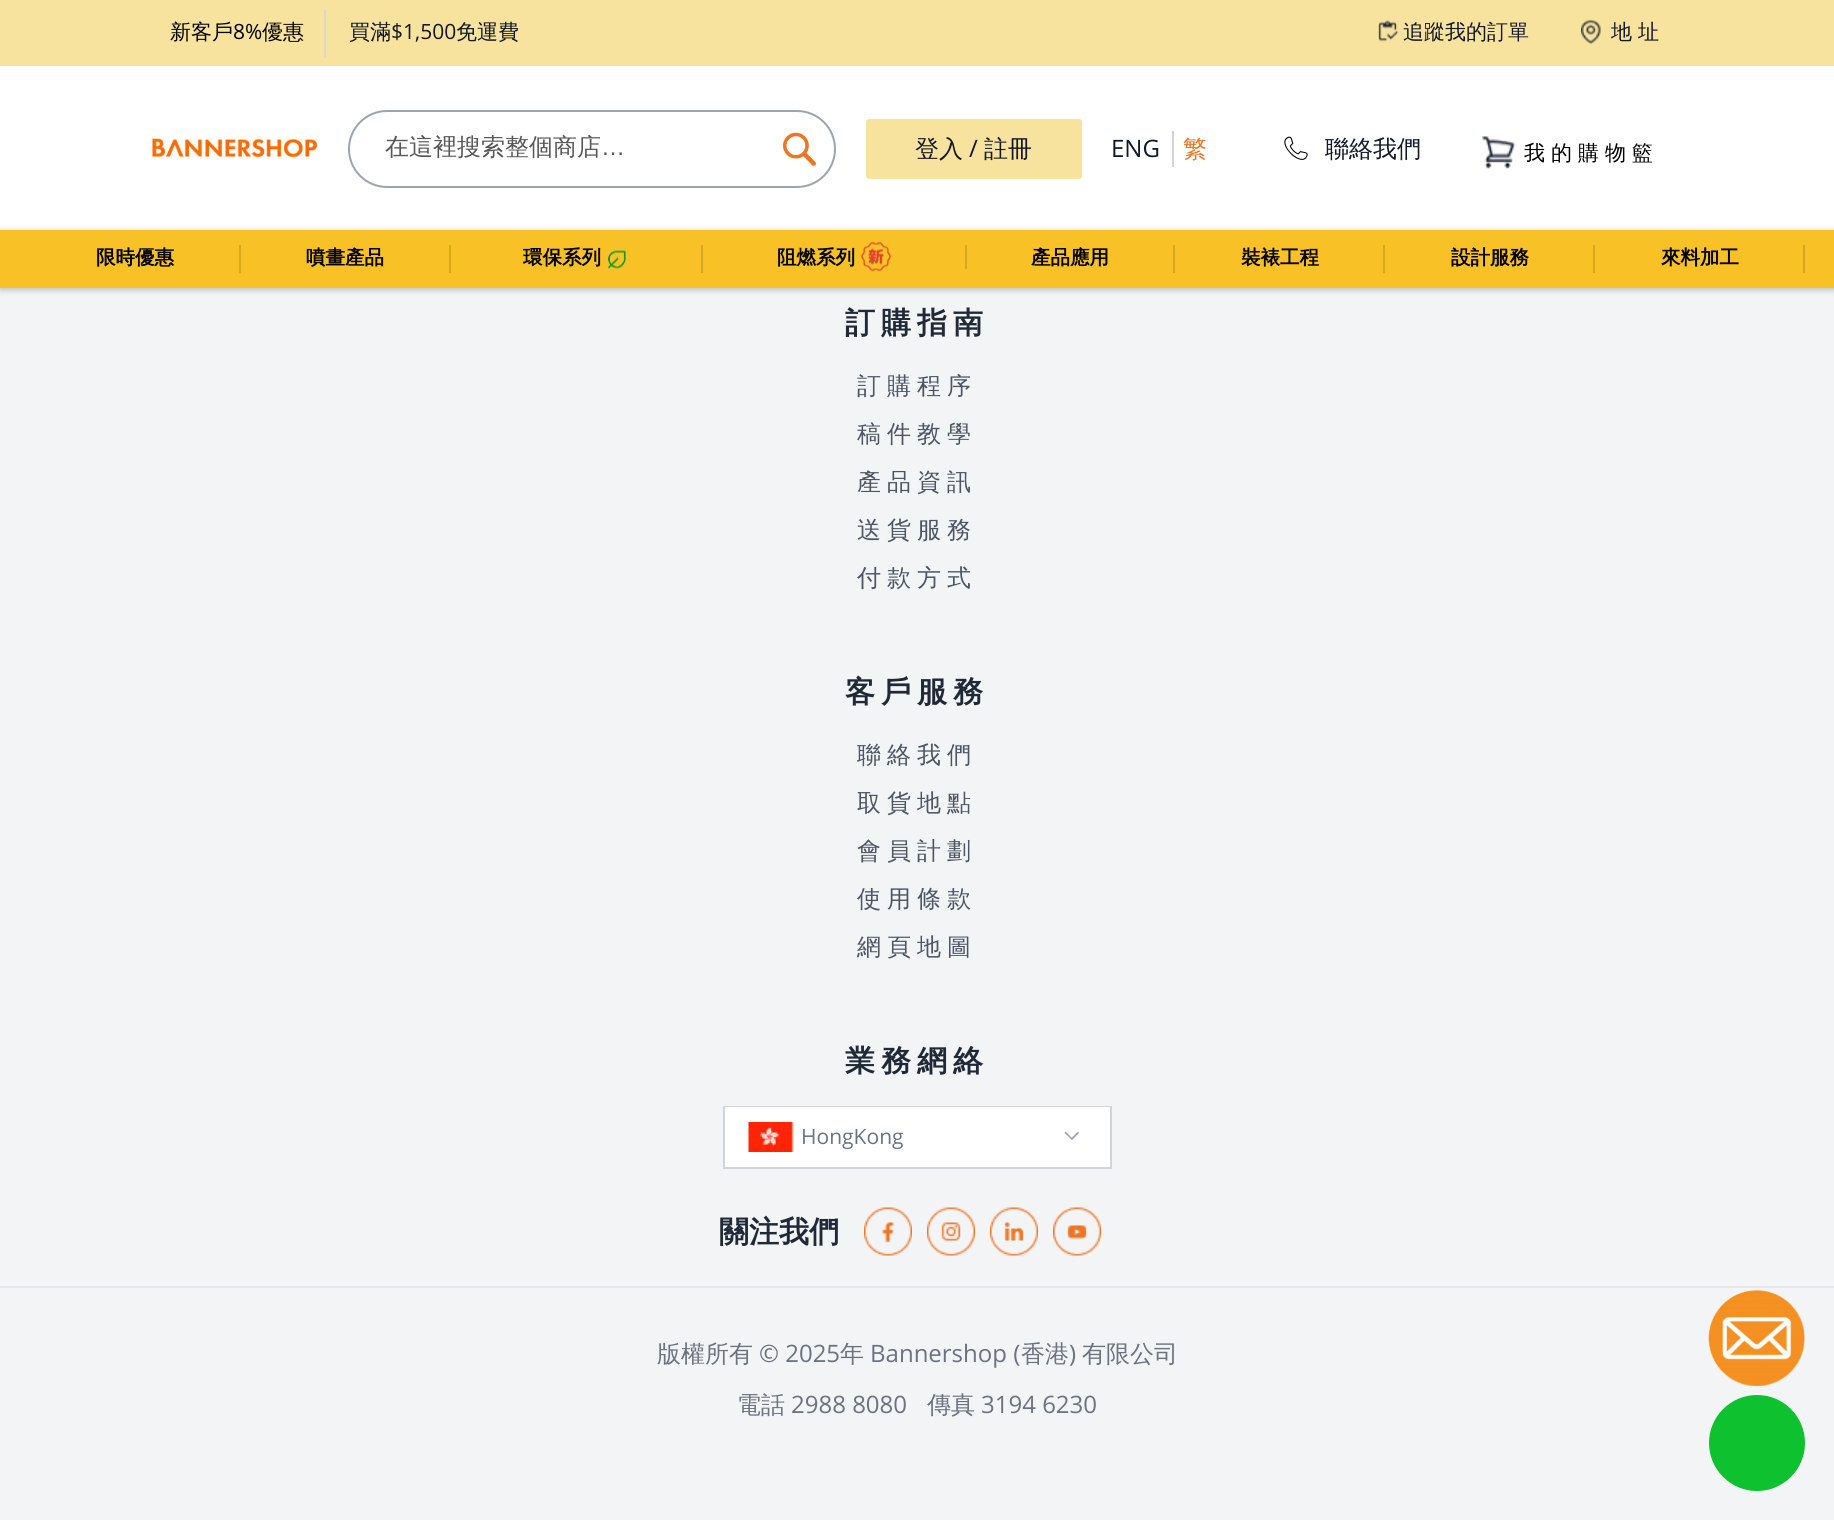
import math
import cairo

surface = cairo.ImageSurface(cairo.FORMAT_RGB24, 1834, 1520)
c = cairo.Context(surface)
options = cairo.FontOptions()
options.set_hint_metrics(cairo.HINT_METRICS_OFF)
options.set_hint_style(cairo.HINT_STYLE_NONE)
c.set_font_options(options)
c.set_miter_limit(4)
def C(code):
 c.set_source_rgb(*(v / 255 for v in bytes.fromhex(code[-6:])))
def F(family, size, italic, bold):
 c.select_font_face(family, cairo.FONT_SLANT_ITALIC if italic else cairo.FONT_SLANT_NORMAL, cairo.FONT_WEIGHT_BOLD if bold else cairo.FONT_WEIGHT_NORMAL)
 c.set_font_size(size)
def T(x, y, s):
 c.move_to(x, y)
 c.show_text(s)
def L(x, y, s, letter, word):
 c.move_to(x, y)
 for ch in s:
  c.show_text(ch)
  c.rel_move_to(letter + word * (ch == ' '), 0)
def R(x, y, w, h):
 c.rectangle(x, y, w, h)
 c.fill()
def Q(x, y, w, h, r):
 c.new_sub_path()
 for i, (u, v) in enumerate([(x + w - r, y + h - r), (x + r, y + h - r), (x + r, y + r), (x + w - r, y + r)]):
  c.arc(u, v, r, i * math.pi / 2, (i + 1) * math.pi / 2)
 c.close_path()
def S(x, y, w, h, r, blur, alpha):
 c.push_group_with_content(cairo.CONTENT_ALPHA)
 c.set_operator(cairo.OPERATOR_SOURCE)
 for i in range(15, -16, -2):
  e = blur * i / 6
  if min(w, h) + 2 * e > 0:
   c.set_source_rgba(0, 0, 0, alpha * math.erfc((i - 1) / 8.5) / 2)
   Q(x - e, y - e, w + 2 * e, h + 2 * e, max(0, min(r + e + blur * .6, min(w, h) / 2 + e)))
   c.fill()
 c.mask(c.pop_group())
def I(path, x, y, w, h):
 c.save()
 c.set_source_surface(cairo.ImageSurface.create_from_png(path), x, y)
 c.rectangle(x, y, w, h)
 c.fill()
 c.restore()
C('f3f4f6')
c.paint()
C('ffffff')
R(0,66,1834,164)
C('f8e39e')
R(0,0,1834,66)
C('d8d8d8')
R(324,9,2,48)
F('WenQuanYi Zen Hei Medium',21,0,0)
C('000000')
T(170,39,'新客戶')
F('Open Sans',21,0,0)
T(233,39,'8%')
F('WenQuanYi Zen Hei Medium',21,0,0)
T(262,39,'優惠')
C('111827')
T(349,39,'買滿')
F('Open Sans',21,0,0)
T(391,39,'$1,500')
F('WenQuanYi Zen Hei Medium',21,0,0)
T(456,39,'免運費')
I('1.png',1378,20,21,22)
T(1403,39,'追蹤我的訂單')
I('2.png',1581,19,20,25)
L(1611,39,'地址',6,0)
I('3.png',150,135,168,24)
Q(349,111,486,76,38)
C('9ca3af')
c.stroke()
F('WenQuanYi Zen Hei Medium',24,0,0)
C('575757')
T(385,155,'在這裡搜索整個商店')
F('Liberation Sans',24,0,0)
T(601,155,'…')
I('4.png',783,132,33,34)
C('f8e39e')
Q(866,119,216,60,3)
c.fill()
F('WenQuanYi Zen Hei Medium',24,0,0)
C('111827')
T(915,157,'登入')
F('Open Sans',24,0,0)
T(969,157,'/')
F('WenQuanYi Zen Hei Medium',24,0,0)
T(984,157,'註冊')
C('d1d5db')
R(1172,131,2,36)
F('Open Sans',24,0,0)
C('111827')
T(1111,157,'ENG')
F('WenQuanYi Zen Hei Medium',24,0,0)
C('ed7523')
T(1183,157,'繁')
I('5.png',1284,136,24,24)
C('111827')
T(1325,157,'聯絡我們')
I('6.png',1482,136,34,33)
F('WenQuanYi Zen Hei Medium',21,0,0)
C('000000')
L(1524,160,'我的購物籃',6,0)
C('888888')
S(0,231,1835,59,0,3,.5)
C('f8c227')
R(0,230,1834,58)
F('WenQuanYi Zen Hei',19.5,0,1)
C('000000')
T(96,264,'限時優惠')
C('d5a824')
R(239,245,2,28)
C('000000')
T(306,264,'噴畫產品')
C('d5a824')
R(449,245,2,28)
C('000000')
T(523,264,'環保系列')
I('7.png',608,250,18,19)
C('d5a824')
R(701,245,2,28)
C('000000')
T(777,264,'阻燃系列')
I('8.png',861,241,30,31)
C('d5a824')
R(965,245,2,24)
C('000000')
T(1031,264,'產品應用')
C('d5a824')
R(1173,245,2,28)
C('000000')
T(1241,264,'裝裱工程')
C('d5a824')
R(1383,245,2,28)
C('000000')
T(1451,264,'設計服務')
C('d5a824')
R(1593,245,2,28)
C('000000')
T(1661,264,'來料加工')
C('d5a824')
R(1803,245,2,28)
C('e5e7eb')
R(0,1286,1834,2)
F('WenQuanYi Zen Hei',30,0,1)
C('1f2937')
L(845,333,'訂購指南',6,0)
F('WenQuanYi Zen Hei Medium',24,0,0)
C('4b5563')
L(857,394,'訂購程序',6,0)
L(857,442,'稿件教學',6,0)
L(857,490,'產品資訊',6,0)
L(857,538,'送貨服務',6,0)
L(857,586,'付款方式',6,0)
F('WenQuanYi Zen Hei',30,0,1)
C('1f2937')
L(845,702,'客戶服務',6,0)
F('WenQuanYi Zen Hei Medium',24,0,0)
C('4b5563')
L(857,763,'聯絡我們',6,0)
L(857,811,'取貨地點',6,0)
L(857,859,'會員計劃',6,0)
L(857,907,'使用條款',6,0)
L(857,955,'網頁地圖',6,0)
F('WenQuanYi Zen Hei',30,0,1)
C('1f2937')
L(845,1071,'業務網絡',6,0)
c.rectangle(724,1107,387,61)
C('d1d5db')
c.stroke()
C('ffffff')
R(725,1107,385,60)
I('9.png',748,1122,46,30)
C('9ca3af')
c.new_path()
c.move_to(1078,1131.5)
c.line_to(1079,1133)
c.line_to(1072,1140)
c.line_to(1070.5,1139)
c.close_path()
c.fill()
c.new_path()
c.move_to(1065.5,1131.5)
c.line_to(1073,1139)
c.line_to(1072,1140)
c.line_to(1064.5,1133)
c.close_path()
c.fill()
F('Open Sans',21,0,0)
C('6b7280')
T(801,1144,'HongKong')
F('WenQuanYi Zen Hei',30,0,1)
C('1f2937')
T(719,1242,'關注我們')
I('10.png',864,1207,48,49)
I('11.png',927,1207,48,49)
I('12.png',990,1207,48,49)
I('13.png',1053,1207,48,49)
F('WenQuanYi Zen Hei Medium',24,0,0)
C('6b7280')
T(657,1362,'版權所有')
F('Open Sans',24,0,0)
T(759,1362,'© 2025')
F('WenQuanYi Zen Hei Medium',24,0,0)
T(840,1362,'年')
F('Open Sans',24,0,0)
T(870,1362,'Bannershop (')
F('WenQuanYi Zen Hei Medium',24,0,0)
T(1021,1362,'香港')
F('Open Sans',24,0,0)
T(1069,1362,')')
F('WenQuanYi Zen Hei Medium',24,0,0)
T(1082,1362,'有限公司')
T(737,1413,'電話')
F('Open Sans',24,0,0)
T(791,1413,'2988 8080')
F('WenQuanYi Zen Hei Medium',24,0,0)
T(927,1413,'傳真')
F('Open Sans',24,0,0)
T(981,1413,'3194 6230')
I('14.png',1708,1290,97,96)
C('0ec12f')
c.arc(1757,1443,48,0,2 * math.pi)
c.fill()
surface.write_to_png('o.png')
